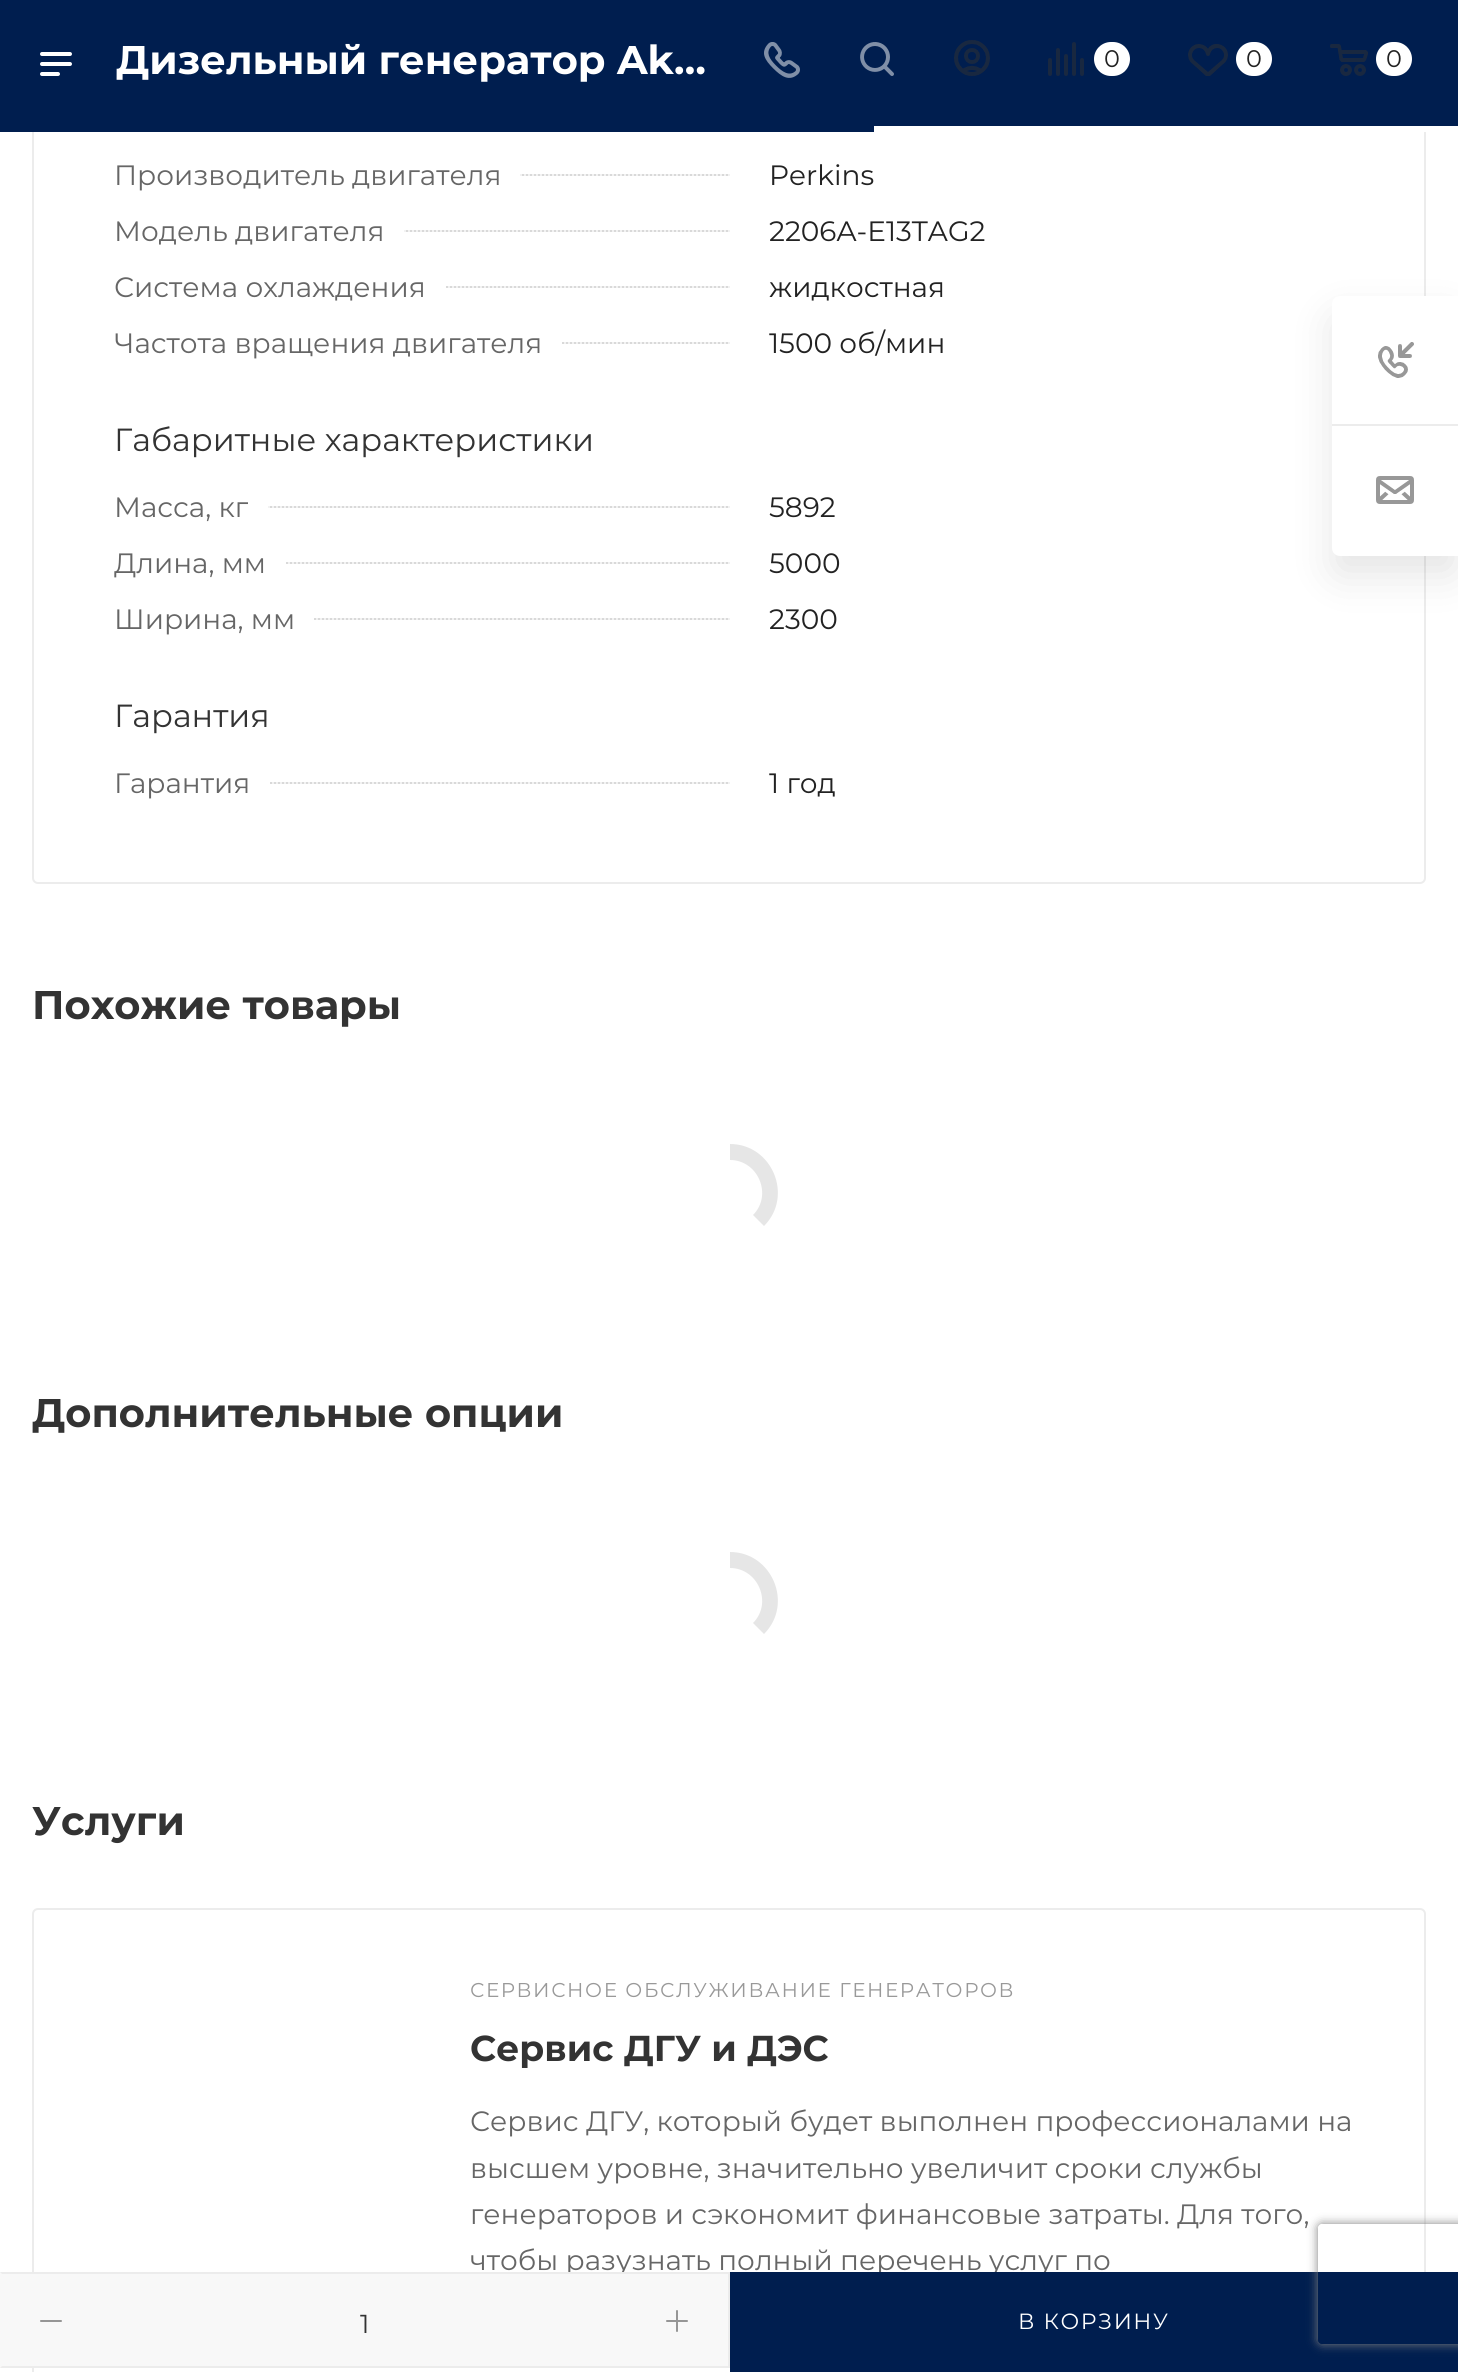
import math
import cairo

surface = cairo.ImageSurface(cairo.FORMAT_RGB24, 1458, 2372)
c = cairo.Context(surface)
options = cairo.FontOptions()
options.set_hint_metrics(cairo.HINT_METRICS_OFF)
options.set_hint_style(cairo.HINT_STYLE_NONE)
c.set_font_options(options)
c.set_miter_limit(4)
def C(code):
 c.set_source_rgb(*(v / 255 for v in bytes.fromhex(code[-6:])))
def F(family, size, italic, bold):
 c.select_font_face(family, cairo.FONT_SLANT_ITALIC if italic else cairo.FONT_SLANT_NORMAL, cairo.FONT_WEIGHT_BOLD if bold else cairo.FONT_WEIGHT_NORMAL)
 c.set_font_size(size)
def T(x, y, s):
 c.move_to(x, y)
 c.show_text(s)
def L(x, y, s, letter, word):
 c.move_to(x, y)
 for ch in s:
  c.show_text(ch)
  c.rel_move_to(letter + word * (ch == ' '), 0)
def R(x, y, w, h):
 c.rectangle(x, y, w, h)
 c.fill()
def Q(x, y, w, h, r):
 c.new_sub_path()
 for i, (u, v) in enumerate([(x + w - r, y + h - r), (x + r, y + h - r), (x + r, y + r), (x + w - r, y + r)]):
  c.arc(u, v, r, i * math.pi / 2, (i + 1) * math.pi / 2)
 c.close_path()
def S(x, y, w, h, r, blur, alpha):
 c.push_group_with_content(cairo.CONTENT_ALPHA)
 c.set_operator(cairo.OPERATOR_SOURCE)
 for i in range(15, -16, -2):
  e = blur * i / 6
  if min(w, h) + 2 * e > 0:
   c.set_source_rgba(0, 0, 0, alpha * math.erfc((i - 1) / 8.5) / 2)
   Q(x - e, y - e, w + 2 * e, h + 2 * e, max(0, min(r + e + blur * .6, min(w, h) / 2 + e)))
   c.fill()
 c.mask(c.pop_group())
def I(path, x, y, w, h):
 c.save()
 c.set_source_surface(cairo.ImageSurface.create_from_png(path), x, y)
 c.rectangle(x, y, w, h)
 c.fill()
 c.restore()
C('ffffff')
c.paint()
Q(33,-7,1392,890,5)
C('ececec')
c.stroke()
C('001e4f')
R(0,0,1458,126)
I('1.png',40,52,32,24)
F('Montserrat',40,0,1)
C('ffffff')
T(116,74,'Дизельный генератор Ak…')
I('2.png',764,42,36,36)
I('3.png',860,42,34,34)
I('4.png',954,40,36,36)
I('5.png',1048,42,36,34)
Q(1094,42,36,34,17)
c.fill()
F('Montserrat',24,0,0)
C('222222')
T(1104,67,'0')
I('6.png',1188,44,40,32)
C('ffffff')
Q(1236,42,36,34,17)
c.fill()
C('222222')
T(1246,67,'0')
I('7.png',1330,44,38,32)
C('ffffff')
Q(1376,42,36,34,17)
c.fill()
C('222222')
T(1386,67,'0')
C('ffffff')
R(1424,126,2,6)
C('001e4f')
R(0,126,874,6)
I('8.png',520,174,210,2)
F('Montserrat',28,0,0)
C('666666')
T(114,185,'Производитель двигателя')
C('222222')
T(769,185,'Perkins')
I('9.png',404,230,326,2)
C('666666')
T(114,241,'Модель двигателя')
C('222222')
T(769,241,'2206A-E13TAG2')
I('10.png',446,286,284,2)
C('666666')
T(114,297,'Система охлаждения')
C('222222')
T(769,297,'жидкостная')
I('11.png',562,342,168,2)
C('666666')
T(114,353,'Частота вращения двигателя')
C('222222')
T(769,353,'1500 об/мин')
F('Montserrat',32,0,0)
C('333333')
T(114,451,'Габаритные характеристики')
I('12.png',268,506,462,2)
F('Montserrat',28,0,0)
C('666666')
T(114,517,'Масса, кг')
C('222222')
T(769,517,'5892')
I('13.png',286,562,444,2)
C('666666')
T(114,573,'Длина, мм')
C('222222')
T(769,573,'5000')
I('14.png',314,618,416,2)
C('666666')
T(114,629,'Ширина, мм')
C('222222')
T(769,629,'2300')
F('Montserrat',32,0,0)
C('333333')
T(114,727,'Гарантия')
I('15.png',270,782,460,2)
F('Montserrat',28,0,0)
C('666666')
T(114,793,'Гарантия')
C('222222')
T(769,793,'1 год')
F('Montserrat',40,0,1)
C('333333')
T(32,1019,'Похожие товары')
C('e6e6e6')
c.new_path()
c.move_to(730,1144)
c.curve_to(772,1144,794,1196,764,1226)
c.line_to(753,1215)
c.curve_to(773,1195,758,1160,730,1160)
c.close_path()
c.fill()
C('333333')
T(32,1427,'Дополнительные опции')
C('e6e6e6')
c.new_path()
c.move_to(730,1552)
c.curve_to(772,1552,794,1604,764,1634)
c.line_to(753,1623)
c.curve_to(773,1603,758,1568,730,1568)
c.close_path()
c.fill()
C('333333')
T(32,1835,'Услуги')
Q(33,1909,1392,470,5)
C('ececec')
c.stroke()
F('Montserrat',20,0,0)
C('999999')
L(470,1997,'СЕРВИСНОЕ ОБСЛУЖИВАНИЕ ГЕНЕРАТОРОВ',1.6,0)
F('Montserrat',36,0,1)
C('333333')
T(470,2061,'Сервис ДГУ и ДЭС')
F('Montserrat',28,0,0)
C('666666')
T(470,2131,'Сервис ДГУ, который будет выполнен профессионалами на')
T(470,2178,'высшем уровне, значительно увеличит сроки службы')
T(470,2224,'генераторов и сэкономит финансовые затраты. Для того,')
T(470,2270,'чтобы разузнать полный перечень услуг по')
C('f8f8f8')
R(0,2272,728,96)
C('ececec')
c.new_path()
c.move_to(0,2272)
c.line_to(730,2272)
c.line_to(728,2274)
c.line_to(2,2274)
c.close_path()
c.fill()
R(728,2272,2,96)
c.new_path()
c.move_to(730,2368)
c.line_to(0,2368)
c.line_to(2,2366)
c.line_to(728,2366)
c.close_path()
c.fill()
C('969696')
Q(40,2320,22,2,1)
c.fill()
F('Montserrat',26,0,0)
C('333333')
T(360,2333,'1')
I('16.png',666,2310,22,22)
C('001e4f')
R(730,2272,728,100)
F('Montserrat',22,0,0)
C('ffffff')
L(1018,2329,'В КОРЗИНУ',1.6,0)
C('000000')
S(1332,316,126,260,8,20,.1)
C('ffffff')
c.new_path()
c.move_to(1340,296)
c.line_to(1458,296)
c.line_to(1458,556)
c.line_to(1340,556)
c.curve_to(1335.5,556,1332,552.5,1332,548)
c.line_to(1332,304)
c.curve_to(1332,299.5,1335.5,296,1340,296)
c.close_path()
c.fill()
C('ececec')
R(1332,424,126,2)
I('17.png',1378,342,36,36)
I('18.png',1376,476,38,28)
c.save()
c.set_fill_rule(cairo.FILL_RULE_EVEN_ODD)
c.new_path()
c.move_to(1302,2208)
c.line_to(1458,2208)
c.line_to(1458,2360)
c.line_to(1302,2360)
c.close_path()
c.move_to(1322,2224)
c.line_to(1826,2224)
c.curve_to(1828,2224,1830,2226,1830,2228)
c.line_to(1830,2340)
c.curve_to(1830,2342,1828,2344,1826,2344)
c.line_to(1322,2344)
c.curve_to(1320,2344,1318,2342,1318,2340)
c.line_to(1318,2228)
c.curve_to(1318,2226,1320,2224,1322,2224)
c.close_path()
c.clip()
C('808080')
S(1318,2224,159,120,4,5,1)
c.restore()
surface.write_to_png('o.png')
